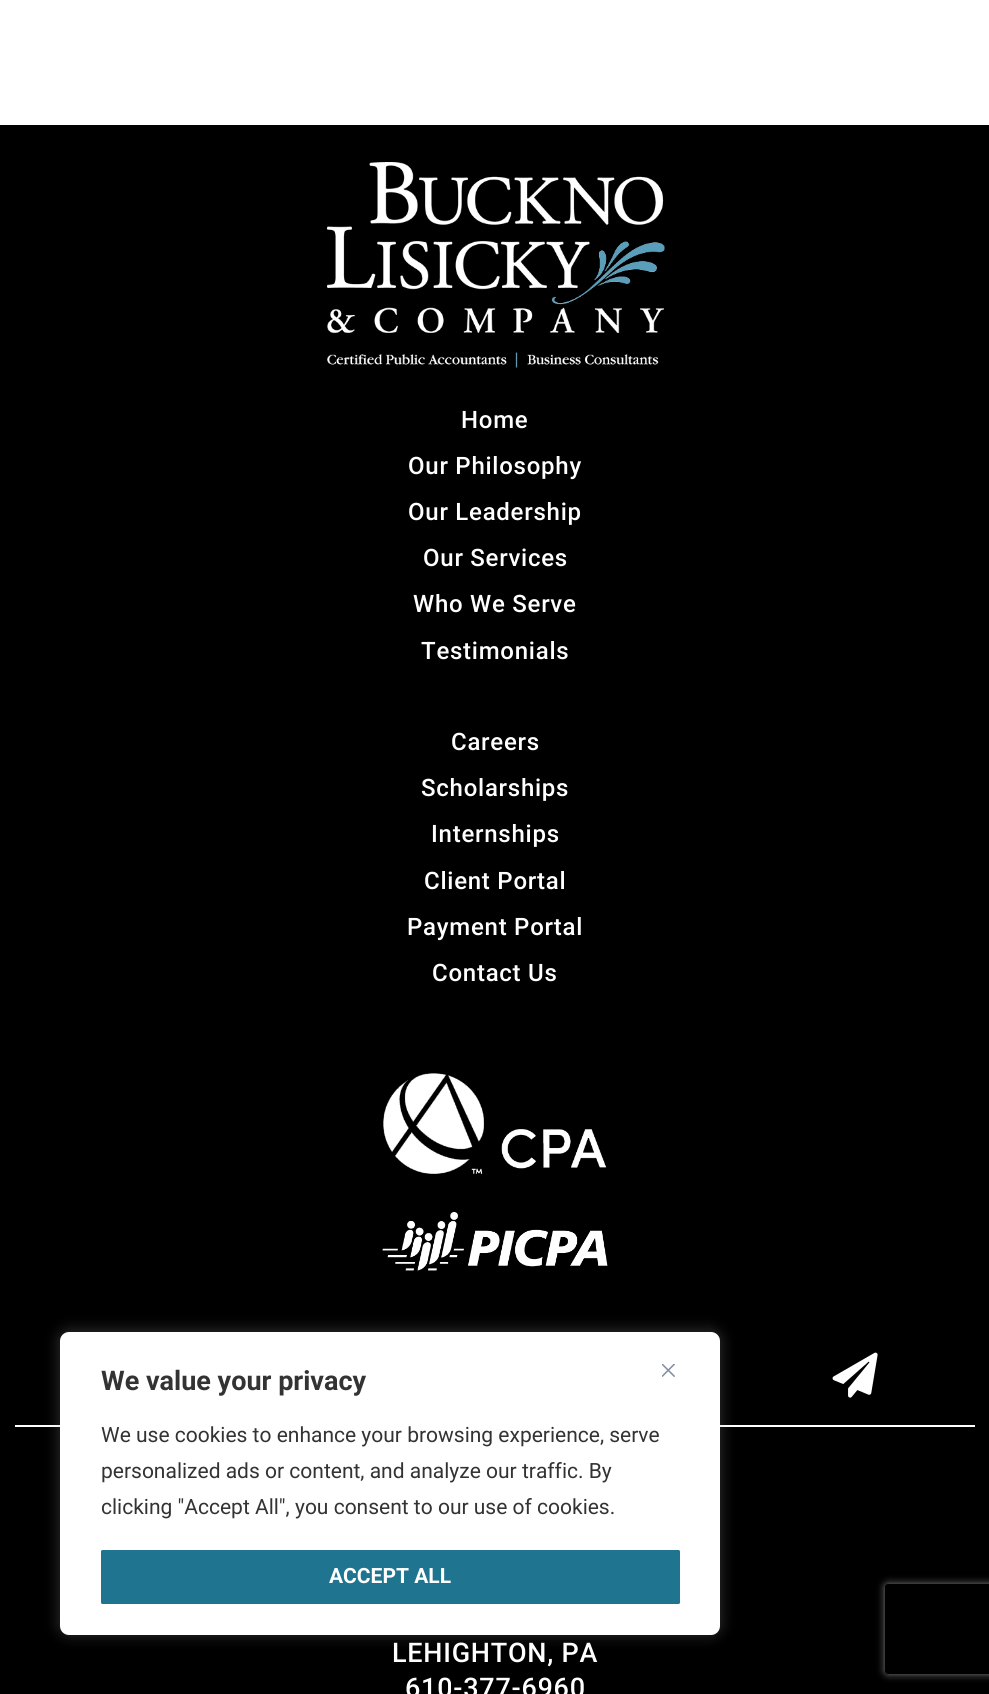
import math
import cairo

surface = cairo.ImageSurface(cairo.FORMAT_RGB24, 989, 1694)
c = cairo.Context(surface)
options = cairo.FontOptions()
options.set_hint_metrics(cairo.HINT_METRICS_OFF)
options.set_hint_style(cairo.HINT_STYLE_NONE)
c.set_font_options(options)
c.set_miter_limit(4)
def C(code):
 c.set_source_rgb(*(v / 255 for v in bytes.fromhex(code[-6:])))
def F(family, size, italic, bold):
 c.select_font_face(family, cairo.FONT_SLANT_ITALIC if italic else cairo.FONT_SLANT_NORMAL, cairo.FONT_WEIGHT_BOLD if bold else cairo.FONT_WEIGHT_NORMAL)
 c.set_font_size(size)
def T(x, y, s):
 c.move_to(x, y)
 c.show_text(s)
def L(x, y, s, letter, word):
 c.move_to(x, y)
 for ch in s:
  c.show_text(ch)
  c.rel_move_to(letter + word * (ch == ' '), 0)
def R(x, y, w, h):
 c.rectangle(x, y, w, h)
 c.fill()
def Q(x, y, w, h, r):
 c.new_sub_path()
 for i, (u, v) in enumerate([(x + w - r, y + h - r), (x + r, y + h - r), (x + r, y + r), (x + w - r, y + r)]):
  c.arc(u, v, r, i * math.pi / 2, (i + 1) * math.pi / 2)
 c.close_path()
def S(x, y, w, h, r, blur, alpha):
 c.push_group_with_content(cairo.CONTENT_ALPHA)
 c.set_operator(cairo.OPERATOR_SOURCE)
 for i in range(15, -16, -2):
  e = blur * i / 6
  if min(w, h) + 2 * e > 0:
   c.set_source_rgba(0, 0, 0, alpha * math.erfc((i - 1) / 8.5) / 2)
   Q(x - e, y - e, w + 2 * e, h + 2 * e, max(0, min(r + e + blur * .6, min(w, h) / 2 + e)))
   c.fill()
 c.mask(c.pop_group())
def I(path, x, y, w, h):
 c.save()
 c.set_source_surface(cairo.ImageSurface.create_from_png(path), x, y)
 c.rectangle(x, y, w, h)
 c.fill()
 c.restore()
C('ffffff')
c.paint()
C('000000')
R(0,125,989,1569)
I('1.png',327,162,338,206)
F('Roboto Medium',24,0,0)
C('ffffff')
L(461,428,'Home',.75,0)
L(408,474,'Our Philosophy',.75,0)
L(408,520,'Our Leadership',.75,0)
L(423,566,'Our Services',.75,0)
L(413,612,'Who We Serve',.75,0)
L(421,659,'Testimonials',.75,0)
L(451,750,'Careers',.75,0)
L(421,796,'Scholarships',.75,0)
L(431,842,'Internships',.75,0)
L(424,889,'Client Portal',.75,0)
L(407,935,'Payment Portal',.75,0)
L(432,981,'Contact Us',.75,0)
I('2.png',383,1073,224,101)
I('3.png',382,1212,226,59)
I('4.png',832,1352,46,46)
R(15,1425,960,2)
F('Roboto Medium',27,0,0)
L(392,1662,'LEHIGHTON, PA',.75,0)
L(405,1697,'610-377-6960',.75,0)
C('acabab')
S(60,1331,660,303,9,7.5,.3)
C('ffffff')
Q(61,1333,658,301,8)
c.fill_preserve()
c.stroke()
F('Roboto',27,0,1)
C('333333')
T(101,1390,'We value your privacy')
F('Roboto',21,0,0)
T(101,1442,'We use cookies to enhance your browsing experience, serve')
T(101,1478,'personalized ads or content, and analyze our traffic. By')
T(101,1514,'clicking "Accept All", you consent to our use of cookies.')
C('1f7490')
Q(101,1550,579,54,1.5)
c.fill()
F('Roboto',21,0,1)
C('ffffff')
T(329,1583,'ACCEPT ALL')
I('5.png',662,1364,13,13)
c.save()
c.set_fill_rule(cairo.FILL_RULE_EVEN_ODD)
c.new_path()
c.move_to(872,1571)
c.line_to(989,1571)
c.line_to(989,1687)
c.line_to(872,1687)
c.close_path()
c.move_to(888,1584)
c.line_to(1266,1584)
c.curve_to(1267.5,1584,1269,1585.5,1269,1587)
c.line_to(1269,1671)
c.curve_to(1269,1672.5,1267.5,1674,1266,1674)
c.line_to(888,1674)
c.curve_to(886.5,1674,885,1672.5,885,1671)
c.line_to(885,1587)
c.curve_to(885,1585.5,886.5,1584,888,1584)
c.close_path()
c.clip()
C('808080')
S(885,1584,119,90,3,4,1)
c.restore()
surface.write_to_png('o.png')
